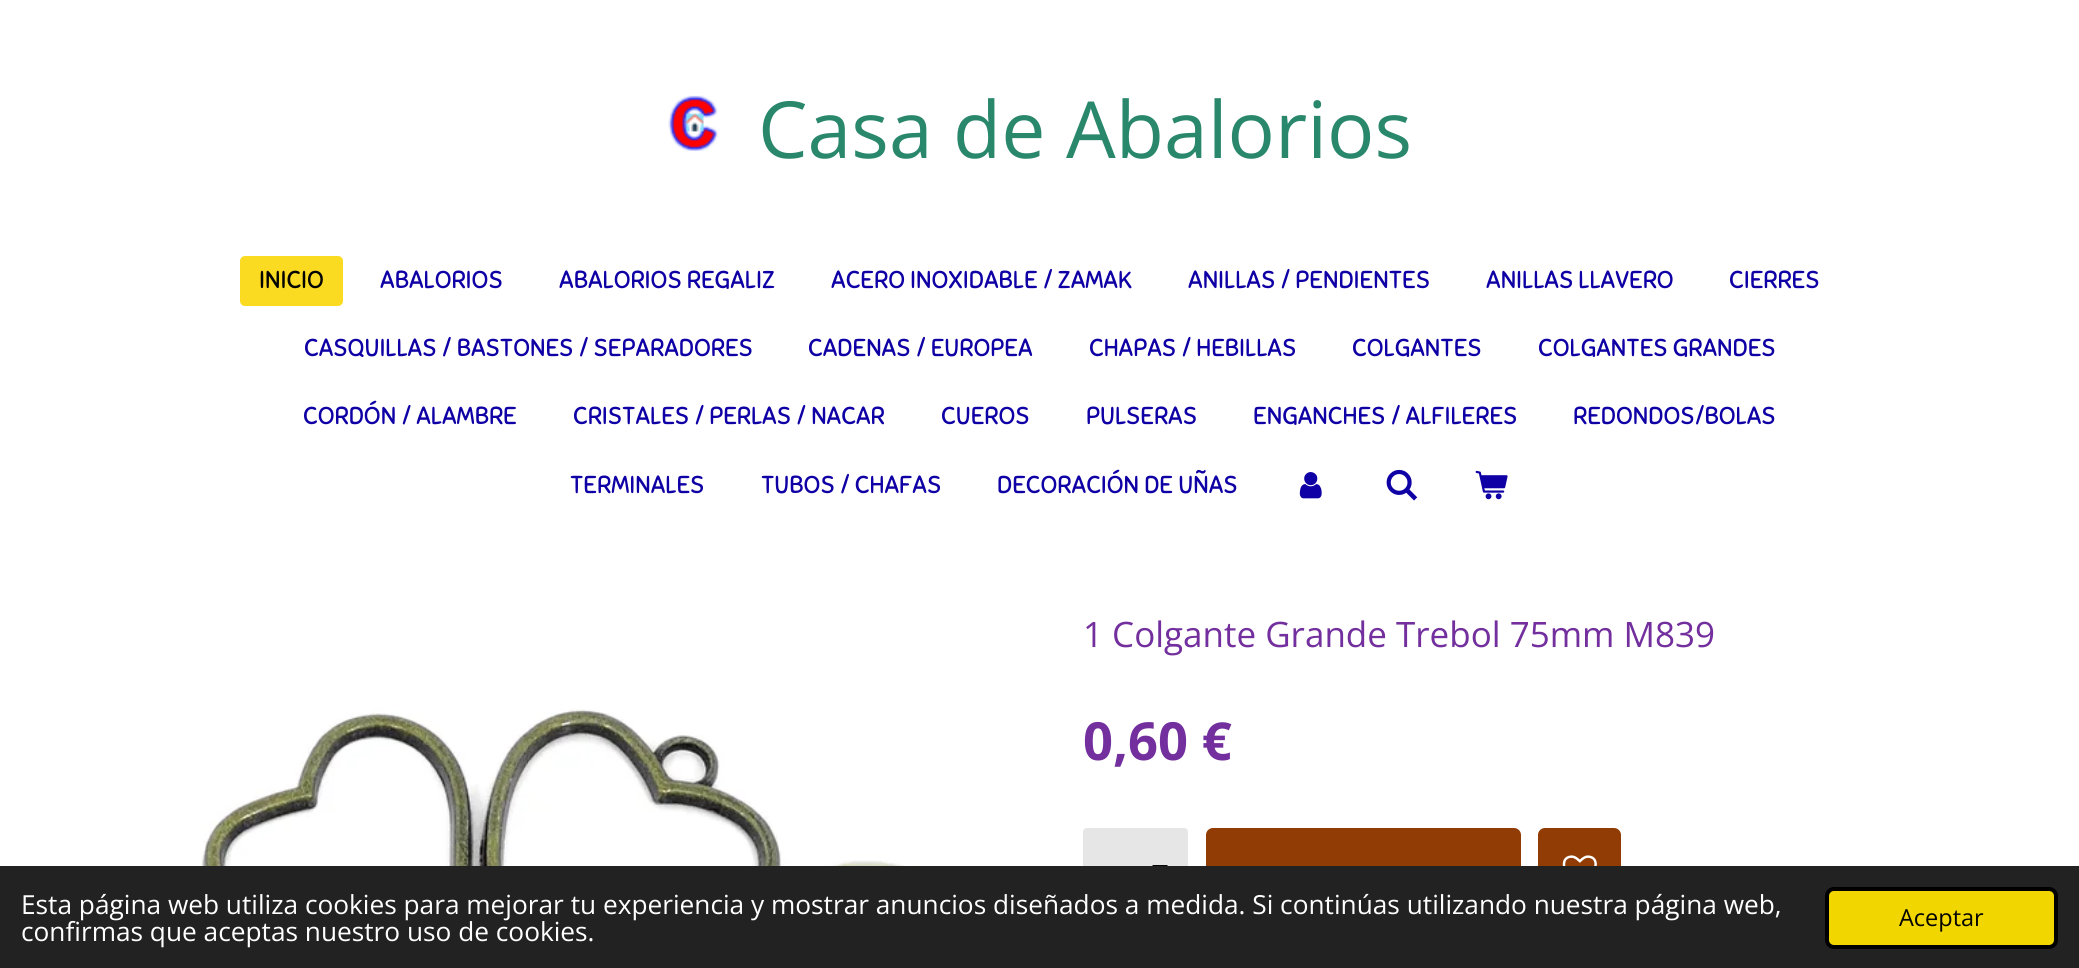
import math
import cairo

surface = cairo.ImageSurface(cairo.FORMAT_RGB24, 2079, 968)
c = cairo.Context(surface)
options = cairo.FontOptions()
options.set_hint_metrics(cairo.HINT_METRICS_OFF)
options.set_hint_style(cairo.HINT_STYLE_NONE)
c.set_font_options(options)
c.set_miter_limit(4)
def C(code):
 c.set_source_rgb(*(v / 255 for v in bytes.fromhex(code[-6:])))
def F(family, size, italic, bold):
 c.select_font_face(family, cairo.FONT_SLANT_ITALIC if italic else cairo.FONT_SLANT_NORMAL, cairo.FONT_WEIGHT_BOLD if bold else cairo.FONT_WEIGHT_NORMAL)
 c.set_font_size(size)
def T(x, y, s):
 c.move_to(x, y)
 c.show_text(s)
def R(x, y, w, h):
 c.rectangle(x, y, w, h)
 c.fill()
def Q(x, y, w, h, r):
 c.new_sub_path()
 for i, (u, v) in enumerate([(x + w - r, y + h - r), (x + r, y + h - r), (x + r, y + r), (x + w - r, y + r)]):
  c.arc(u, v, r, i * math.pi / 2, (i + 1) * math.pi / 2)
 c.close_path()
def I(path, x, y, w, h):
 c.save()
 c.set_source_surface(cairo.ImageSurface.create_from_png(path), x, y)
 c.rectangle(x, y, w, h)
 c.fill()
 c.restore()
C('ffffff')
c.paint()
I('1.png',668,95,50,56)
F('Open Sans',78.75,0,0)
C('29876b')
T(758,158,'Casa de Abalorios')
C('fbdb22')
Q(240,256,103,50,5)
c.fill()
F('Sniglet',24.5,0,0)
C('040400')
T(259,288,'INICIO')
C('0f00a5')
T(380,288,'ABALORIOS')
T(559,288,'ABALORIOS REGALIZ')
T(831,288,'ACERO INOXIDABLE / ZAMAK')
T(1188,288,'ANILLAS / PENDIENTES')
T(1486,288,'ANILLAS LLAVERO')
T(1729,288,'CIERRES')
T(304,356,'CASQUILLAS / BASTONES / SEPARADORES')
T(808,356,'CADENAS / EUROPEA')
T(1089,356,'CHAPAS / HEBILLAS')
T(1352,356,'COLGANTES')
T(1538,356,'COLGANTES GRANDES')
T(303,424,'CORDÓN / ALAMBRE')
T(573,424,'CRISTALES / PERLAS / NACAR')
T(941,424,'CUEROS')
T(1086,424,'PULSERAS')
T(1253,424,'ENGANCHES / ALFILERES')
T(1573,424,'REDONDOS/BOLAS')
T(570,493,'TERMINALES')
T(761,493,'TUBOS / CHAFAS')
T(997,493,'DECORACIÓN DE UÑAS')
I('2.png',1299,472,23,27)
I('3.png',1386,469,32,32)
I('4.png',1475,470,33,30)
F('Open Sans',35,0,0)
C('722f9d')
T(1083,647,'1 Colgante Grande Trebol 75mm M839')
I('5.png',201,708,786,158)
F('Open Sans',52.5,0,1)
T(1083,760,'0,60 €')
C('e6e6e6')
Q(1083,828,105,84,4)
c.fill()
C('070707')
c.new_path()
c.move_to(1160,873)
c.line_to(1152,865)
c.line_to(1168,865)
c.close_path()
c.fill()
C('903c04')
Q(1206,828,315,84,7)
c.fill()
Q(1538,828,83,84,7)
c.fill()
I('6.png',1562,855,35,11)
C('222222')
R(0,866,2079,102)
F('Open Sans',26.25,0,0)
C('ffffff')
T(21,914,'Esta página web utiliza cookies para mejorar tu experiencia y mostrar anuncios diseñados a medida. Si continúas utilizando nuestra página web,')
T(21,941,'confirmas que aceptas nuestro uso de cookies.')
C('f1d600')
Q(1827,889,229,58,7)
c.fill_preserve()
C('000000')
c.set_line_width(4)
c.stroke()
F('Open Sans',23.5,0,0)
C('040400')
T(1899,926,'Aceptar')
surface.write_to_png('o.png')
